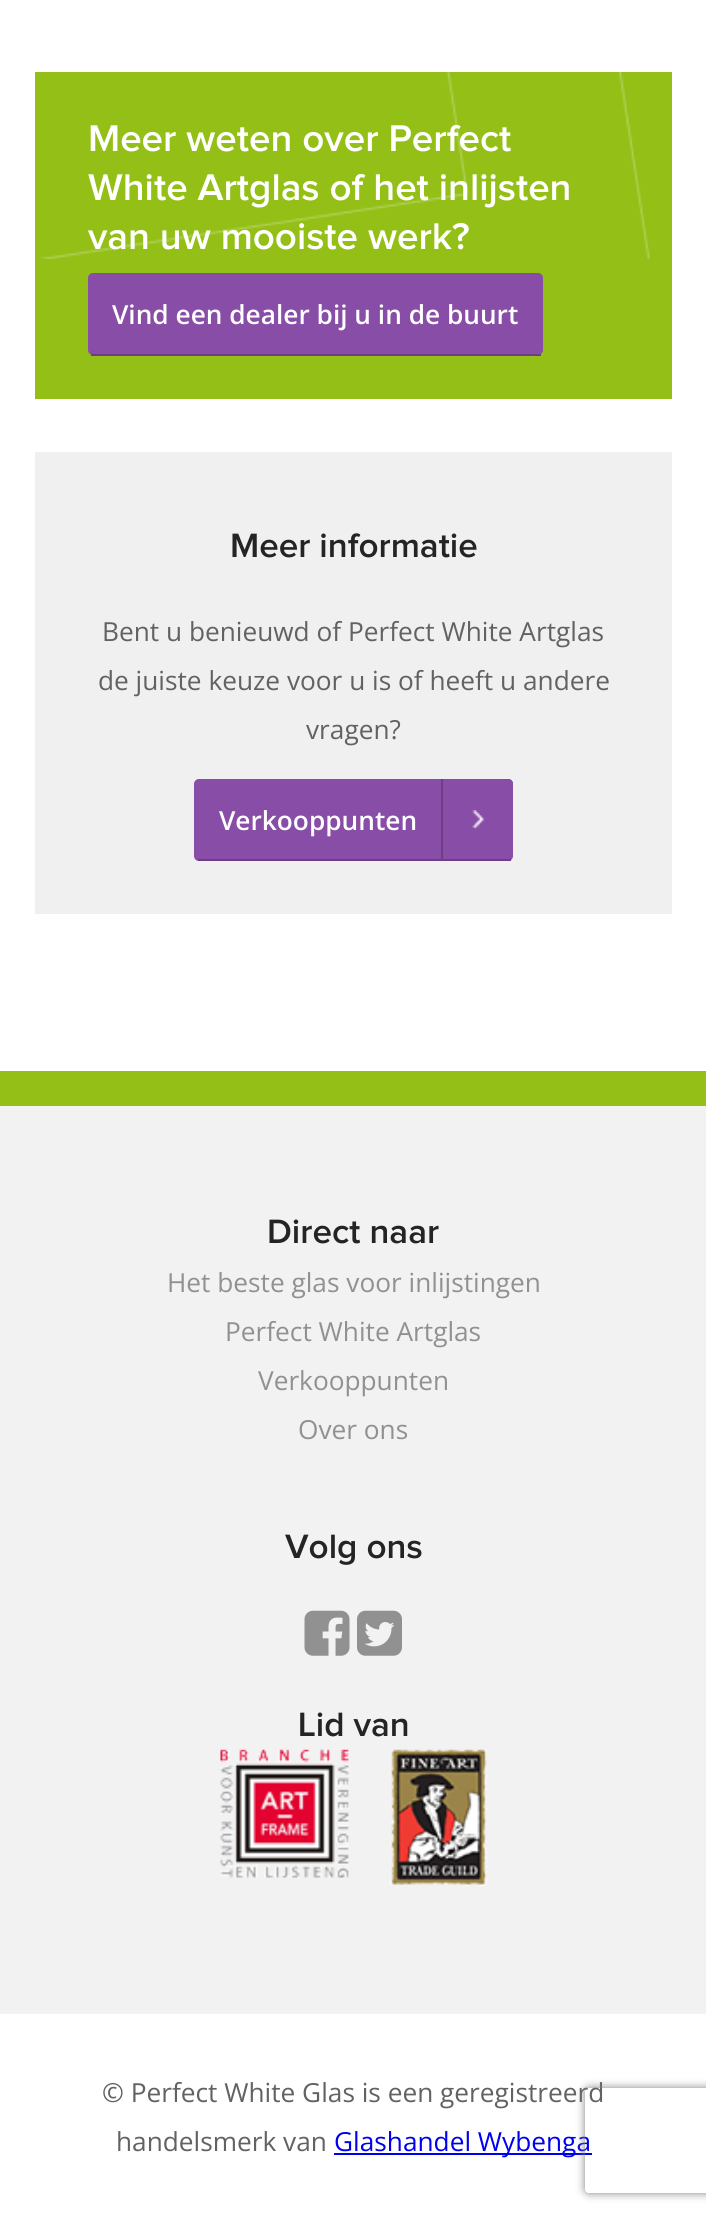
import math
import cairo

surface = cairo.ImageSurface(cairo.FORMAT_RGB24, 706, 2216)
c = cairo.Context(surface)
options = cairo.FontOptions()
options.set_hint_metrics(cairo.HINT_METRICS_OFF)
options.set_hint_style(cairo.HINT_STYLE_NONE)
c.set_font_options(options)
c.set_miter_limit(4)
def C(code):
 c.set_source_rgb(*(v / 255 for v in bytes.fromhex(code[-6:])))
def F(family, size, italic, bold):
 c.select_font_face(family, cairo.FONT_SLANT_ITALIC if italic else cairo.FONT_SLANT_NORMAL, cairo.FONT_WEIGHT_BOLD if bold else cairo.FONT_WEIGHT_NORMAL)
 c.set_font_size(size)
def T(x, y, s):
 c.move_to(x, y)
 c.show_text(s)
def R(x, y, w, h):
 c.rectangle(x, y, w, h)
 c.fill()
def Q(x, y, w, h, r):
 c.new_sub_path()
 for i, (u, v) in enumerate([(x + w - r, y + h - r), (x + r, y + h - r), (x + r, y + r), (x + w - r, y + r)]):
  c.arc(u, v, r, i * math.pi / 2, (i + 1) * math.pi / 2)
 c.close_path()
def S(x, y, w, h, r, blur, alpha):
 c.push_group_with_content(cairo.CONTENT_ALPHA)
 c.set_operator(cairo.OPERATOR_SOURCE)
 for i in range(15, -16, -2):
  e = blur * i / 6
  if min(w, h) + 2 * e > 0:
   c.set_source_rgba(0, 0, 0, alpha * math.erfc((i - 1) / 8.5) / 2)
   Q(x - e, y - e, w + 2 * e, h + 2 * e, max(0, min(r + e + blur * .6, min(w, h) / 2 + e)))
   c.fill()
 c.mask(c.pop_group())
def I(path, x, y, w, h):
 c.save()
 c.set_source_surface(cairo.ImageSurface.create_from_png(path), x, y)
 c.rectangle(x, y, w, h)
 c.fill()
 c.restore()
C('ffffff')
c.paint()
C('93bf16')
R(35,72,637,327)
I('1.png',39,72,612,187)
F('Proxima Nova SemiBold',38.5,0,0)
C('ffffff')
T(88,151,'Meer weten over Perfect')
T(88,200,'White Artglas of het inlijsten')
T(88,249,'van uw mooiste werk?')
C('884da6')
Q(88,273,455,82,5)
c.fill()
C('6d3e85')
R(91,354,450,2)
F('Open Sans SemiBold',26.25,0,0)
C('ffffff')
T(112,324,'Vind een dealer bij u in de buurt')
C('f0f0f0')
R(35,452,637,462)
F('Proxima Nova SemiBold',35,0,0)
C('242424')
T(230,557,'Meer informatie')
F('Open Sans',26.25,0,0)
C('626262')
T(102,641,'Bent u benieuwd of Perfect White Artglas')
T(98,690,'de juiste keuze voor u is of heeft u andere')
T(306,739,'vragen?')
C('884da6')
Q(194,779,319,82,5)
c.fill()
C('6d3e85')
R(198,859,313,2)
F('Open Sans SemiBold',26.25,0,0)
C('ffffff')
T(219,830,'Verkooppunten')
C('884da6')
c.new_path()
c.move_to(441,779)
c.line_to(508,779)
c.curve_to(511,779,513,781,513,784)
c.line_to(513,854)
c.curve_to(513,857,511,859,508,859)
c.line_to(441,859)
c.close_path()
c.fill()
I('2.png',472,810,13,20)
C('6d3e85')
R(441,779,2,80)
C('93bf16')
R(0,1071,706,35)
C('f2f2f2')
R(0,1106,706,908)
F('Proxima Nova SemiBold',35,0,0)
C('242424')
T(267,1243,'Direct naar')
F('Open Sans',26.25,0,0)
C('919191')
T(167,1292,'Het beste glas voor inlijstingen')
T(225,1341,'Perfect White Artglas')
T(258,1390,'Verkooppunten')
T(298,1439,'Over ons')
F('Proxima Nova SemiBold',35,0,0)
C('242424')
T(285,1558,'Volg ons')
I('3.png',304,1610,46,46)
I('4.png',357,1610,45,46)
T(298,1736,'Lid van')
I('5.png',220,1749,267,137)
F('Open Sans',26.25,0,0)
C('626262')
T(102,2102,'© Perfect White Glas is een geregistreerd')
T(116,2151,'handelsmerk van')
C('0000ee')
R(334,2153,258,2)
T(334,2151,'Glashandel Wybenga')
c.save()
c.set_fill_rule(cairo.FILL_RULE_EVEN_ODD)
c.new_path()
c.move_to(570,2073)
c.line_to(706,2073)
c.line_to(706,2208)
c.line_to(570,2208)
c.close_path()
c.move_to(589,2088)
c.line_to(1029,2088)
c.curve_to(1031,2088,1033,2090,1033,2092)
c.line_to(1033,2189)
c.curve_to(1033,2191,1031,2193,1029,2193)
c.line_to(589,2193)
c.curve_to(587,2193,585,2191,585,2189)
c.line_to(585,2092)
c.curve_to(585,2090,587,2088,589,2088)
c.close_path()
c.clip()
C('808080')
S(585,2088,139,105,4,4.5,1)
c.restore()
surface.write_to_png('o.png')
